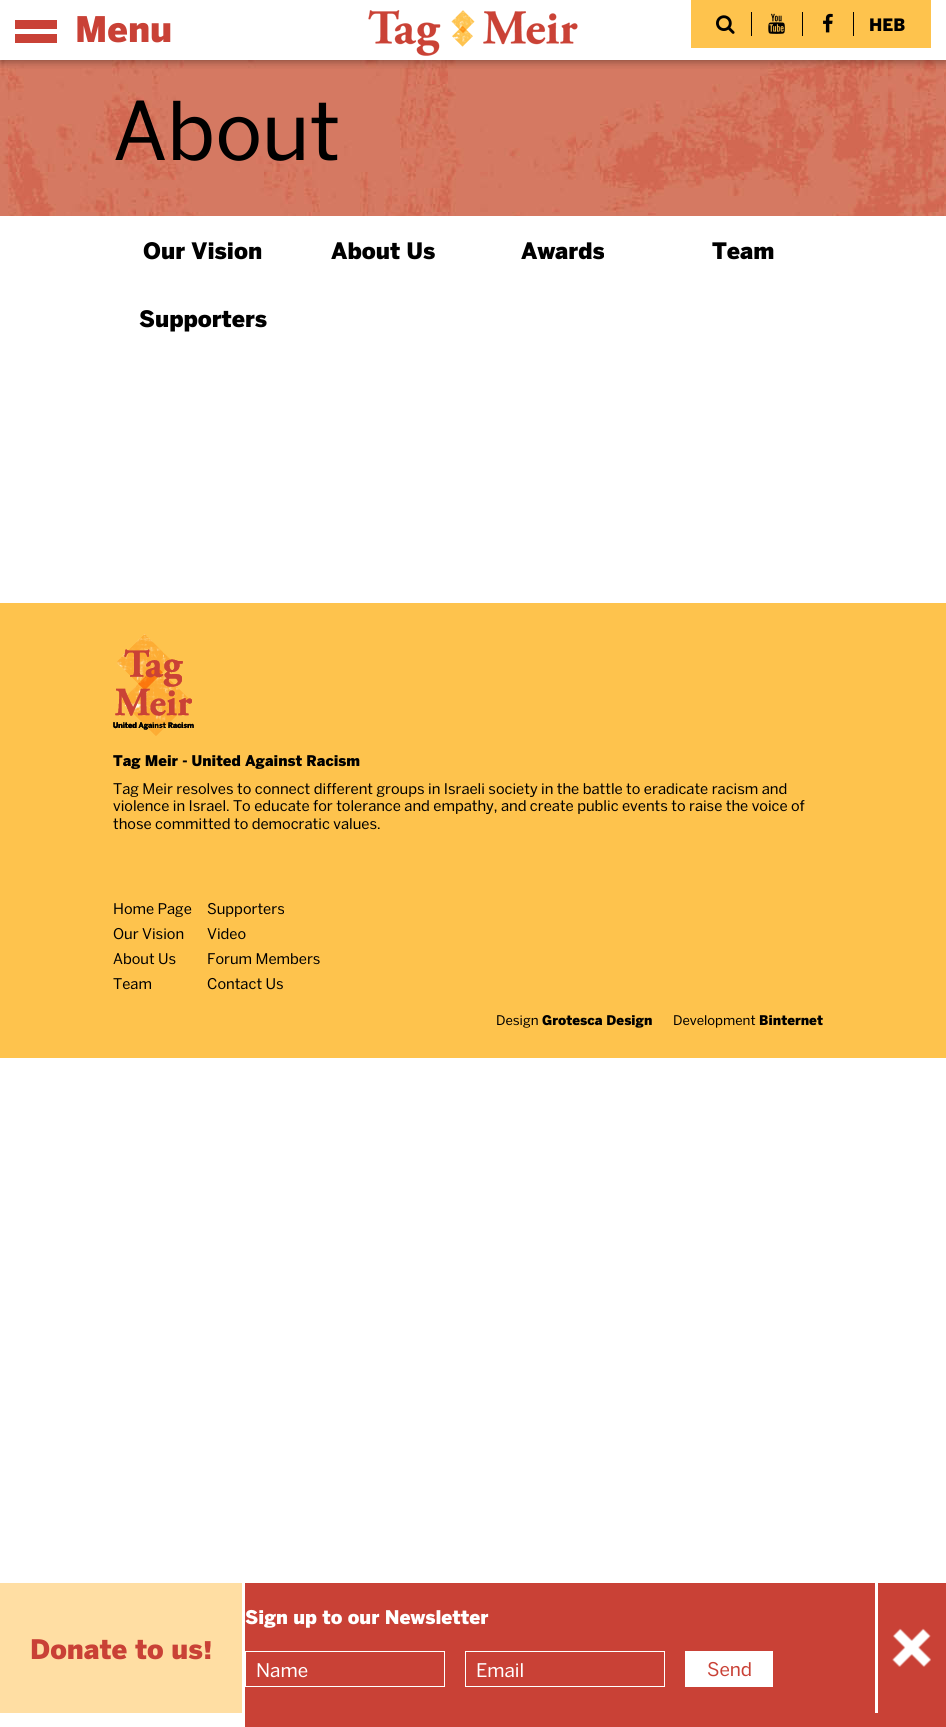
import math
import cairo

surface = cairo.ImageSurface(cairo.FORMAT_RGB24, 946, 1727)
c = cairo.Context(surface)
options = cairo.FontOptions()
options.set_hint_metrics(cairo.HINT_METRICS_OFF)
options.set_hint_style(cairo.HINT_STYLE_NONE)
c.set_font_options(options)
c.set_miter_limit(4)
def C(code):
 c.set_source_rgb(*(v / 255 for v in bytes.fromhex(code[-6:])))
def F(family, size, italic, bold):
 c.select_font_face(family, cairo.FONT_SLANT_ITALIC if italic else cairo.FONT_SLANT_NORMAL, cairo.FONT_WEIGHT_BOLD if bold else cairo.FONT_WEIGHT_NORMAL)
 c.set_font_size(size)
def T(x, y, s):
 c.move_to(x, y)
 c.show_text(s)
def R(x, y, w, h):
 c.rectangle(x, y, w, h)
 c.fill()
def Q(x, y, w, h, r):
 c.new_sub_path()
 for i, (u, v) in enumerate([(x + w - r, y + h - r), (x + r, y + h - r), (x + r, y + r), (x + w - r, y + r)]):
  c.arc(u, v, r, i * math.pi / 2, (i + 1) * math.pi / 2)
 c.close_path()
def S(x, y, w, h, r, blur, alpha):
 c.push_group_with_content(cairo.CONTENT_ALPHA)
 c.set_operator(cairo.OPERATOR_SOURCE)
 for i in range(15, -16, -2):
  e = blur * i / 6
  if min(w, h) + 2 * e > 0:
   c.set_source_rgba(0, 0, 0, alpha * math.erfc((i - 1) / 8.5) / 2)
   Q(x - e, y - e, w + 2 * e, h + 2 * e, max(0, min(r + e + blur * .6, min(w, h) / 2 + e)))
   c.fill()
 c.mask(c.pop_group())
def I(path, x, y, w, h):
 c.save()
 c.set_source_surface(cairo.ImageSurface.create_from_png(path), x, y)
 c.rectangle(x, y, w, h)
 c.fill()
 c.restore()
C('ffffff')
c.paint()
I('5.png',0,60,946,156)
c.save()
c.rectangle(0,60,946,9)
c.clip()
C('000000')
S(0,0,946,60,0,5,.5)
c.restore()
C('c94136')
R(15,20,42,9)
R(15,34,42,9)
F('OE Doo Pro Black',35,0,0)
T(75,42,'Menu')
I('1.png',368,10,210,46)
C('fec34d')
R(691,0,240,48)
C('000000')
R(751,12,1,24)
I('2.png',716,15,19,19)
R(802,12,1,24)
I('3.png',768,13,17,21)
R(853,12,1,24)
I('4.png',823,13,10,20)
F('OE Doo Pro Black',17,0,0)
T(869,31,'HEB')
F('OE Doo Pro',80,0,0)
T(113,160,'About')
F('OE Doo Pro Black',22.5,0,0)
T(143,259,'Our Vision')
T(331,259,'About Us')
T(521,259,'Awards')
T(712,259,'Team')
T(139,327,'Supporters')
C('fec34d')
R(0,603,946,455)
I('6.png',113,634,81,102)
F('OE Doo Pro Black',14.65,0,0)
C('000000')
T(113,766,'Tag Meir - United Against Racism')
F('OE Doo Pro',14.65,0,0)
T(113,794,'Tag Meir resolves to connect different groups in Israeli society in the battle to eradicate racism and')
T(113,811,'violence in Israel. To educate for tolerance and empathy, and create public events to raise the voice of')
T(113,829,'those committed to democratic values.')
T(113,914,'Home Page')
T(113,939,'Our Vision')
T(113,964,'About Us')
T(113,989,'Team')
T(207,914,'Supporters')
T(207,939,'Video')
T(207,964,'Forum Members')
T(207,989,'Contact Us')
F('OE Doo Pro',13.25,0,0)
T(496,1025,'Design')
F('OE Doo Pro Black',13.25,0,0)
T(542,1025,'Grotesca Design')
F('OE Doo Pro',13.25,0,0)
T(673,1025,'Development')
F('OE Doo Pro Black',13.25,0,0)
T(759,1025,'Binternet')
C('ffdea3')
R(0,1583,242,130)
F('OE Doo Pro Black',26.75,0,0)
C('c94136')
T(30,1659,'Donate to us!')
R(245,1583,701,144)
F('OE Doo Pro Black',18.7,0,0)
C('ffffff')
T(245,1624,'Sign up to our Newsletter')
c.rectangle(245.5,1651.5,199,35)
c.set_line_width(1)
c.stroke()
F('OE Doo Pro',18.7,0,0)
T(256,1677,'Name')
c.rectangle(465.5,1651.5,199,35)
c.stroke()
T(476,1677,'Email')
R(685,1651,88,36)
C('c94136')
T(707,1676,'Send')
C('ffffff')
R(875,1583,3,130)
I('7.png',892,1628,39,39)
surface.write_to_png('o.png')
